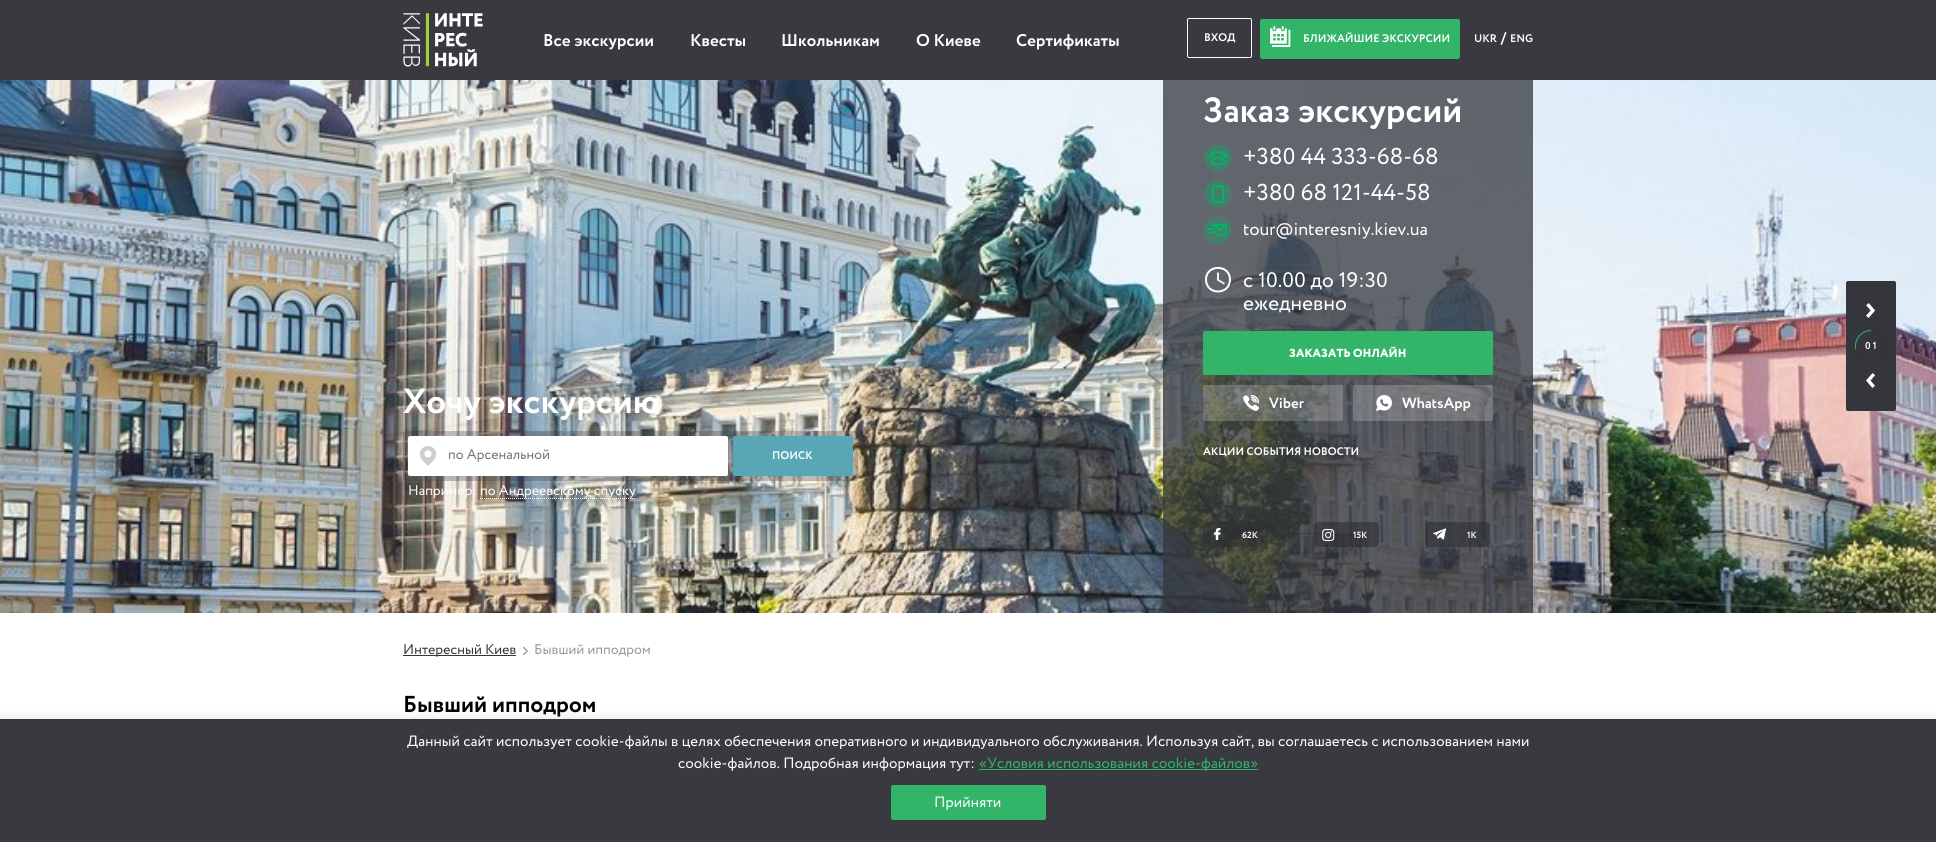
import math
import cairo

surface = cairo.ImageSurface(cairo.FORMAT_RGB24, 1936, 842)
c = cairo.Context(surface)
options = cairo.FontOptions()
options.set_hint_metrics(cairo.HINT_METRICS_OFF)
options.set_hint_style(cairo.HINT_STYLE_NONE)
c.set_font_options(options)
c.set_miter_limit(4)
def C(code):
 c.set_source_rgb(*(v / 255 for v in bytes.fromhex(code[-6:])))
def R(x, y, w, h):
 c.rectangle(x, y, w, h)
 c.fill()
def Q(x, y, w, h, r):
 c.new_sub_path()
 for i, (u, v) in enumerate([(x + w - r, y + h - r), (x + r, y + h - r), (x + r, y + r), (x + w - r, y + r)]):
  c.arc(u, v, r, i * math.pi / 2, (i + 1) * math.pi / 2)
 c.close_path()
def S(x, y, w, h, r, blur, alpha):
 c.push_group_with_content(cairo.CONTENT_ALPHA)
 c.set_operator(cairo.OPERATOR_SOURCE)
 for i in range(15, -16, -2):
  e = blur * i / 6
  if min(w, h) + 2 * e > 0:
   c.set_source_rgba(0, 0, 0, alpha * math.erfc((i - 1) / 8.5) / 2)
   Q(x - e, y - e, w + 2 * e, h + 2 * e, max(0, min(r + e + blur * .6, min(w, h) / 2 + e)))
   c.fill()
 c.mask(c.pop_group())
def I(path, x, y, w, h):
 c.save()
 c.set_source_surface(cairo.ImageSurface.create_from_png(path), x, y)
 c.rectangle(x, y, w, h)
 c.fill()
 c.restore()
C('ffffff')
c.paint()
C('383a40')
R(0,0,1936,80)
I('1.png',403,13,80,54)
I('2.png',544,34,109,16)
I('3.png',691,34,54,13)
I('4.png',782,34,97,13)
I('5.png',916,33,65,14)
I('6.png',1016,33,103,17)
Q(1187.5,18.5,64,39,1.5)
C('ffffff')
c.set_line_width(1)
c.stroke()
I('7.png',1205,33,31,10)
C('32b469')
Q(1260,19,200,40,2)
c.fill()
I('8.png',1270,26,21,21)
I('9.png',1304,32,146,11)
I('10.png',1474,34,23,9)
C('ffffff')
c.new_path()
c.move_to(1500.5,44.5)
c.line_to(1502,45)
c.line_to(1506.5,32.5)
c.line_to(1505,32)
c.close_path()
c.fill()
I('11.png',1511,34,22,9)
I('12.png',0,80,1936,533)
C('34363c')
Q(1846,281,50,130,2)
c.fill()
I('13.png',1866,303,10,15)
C('2f3136')
c.arc(1871,346,16,0,2 * math.pi)
c.fill()
c.save()
Q(1855,330,32,32,16)
c.clip()
C('32b469')
c.new_path()
c.move_to(1871,330)
c.line_to(1871,349)
c.line_to(1855,349)
c.line_to(1855,346)
c.curve_to(1855,337,1862,330,1871,330)
c.close_path()
c.fill()
c.restore()
C('34363c')
c.arc(1871,346,15,0,2 * math.pi)
c.fill()
I('14.png',1865,341,11,9)
I('15.png',1866,373,10,15)
I('16.png',403,388,256,32)
c.set_source_rgba(0.22,0.227,0.251,0.3)
Q(403,431,455,50,2)
c.fill()
C('ffffff')
Q(408,436,320,40,2)
c.fill()
I('17.png',449,449,100,13)
I('18.png',419,446,18,20)
C('58a6b6')
Q(733,436,120,40,2)
c.fill()
I('19.png',773,451,40,9)
I('20.png',409,485,67,13)
c.new_path()
c.move_to(480,498.5)
c.line_to(636,498.5)
C('ffffff')
c.set_dash([1,1])
c.stroke()
I('21.png',481,485,155,13)
c.set_source_rgba(0.204,0.216,0.243,0.75)
R(1163,80,370,533)
I('22.png',1204,97,256,32)
I('23.png',1204,144,28,28)
I('24.png',1244,147,194,18)
I('25.png',1204,180,28,28)
I('26.png',1244,183,186,18)
I('27.png',1204,216,28,28)
I('28.png',1244,222,183,17)
C('eff0f0')
c.new_path()
c.move_to(1219,272.5)
c.line_to(1217,272.5)
c.line_to(1217,280.5)
c.line_to(1224,284.5)
c.line_to(1225,283)
c.line_to(1219,279.5)
c.close_path()
c.fill()
c.new_path()
c.move_to(1230,279.5)
c.curve_to(1230,295.5,1206,295.5,1206,279.5)
c.curve_to(1206,264,1230,264,1230,279.5)
c.close_path()
C('ffffff')
c.set_line_width(2)
c.set_dash([])
c.stroke()
I('29.png',1243,272,144,18)
I('30.png',1243,300,103,13)
C('32b469')
Q(1203,331,290,44,2)
c.fill()
I('31.png',1289,346,117,12)
c.set_source_rgba(1,1,1,0.2)
Q(1203,385,140,36,2)
c.fill()
I('32.png',1243,395,16,16)
I('33.png',1269,397,35,12)
Q(1353,385,140,36,2)
c.fill()
I('34.png',1376,395,16,16)
I('35.png',1402,397,69,14)
I('36.png',1203,447,156,10)
c.set_source_rgba(0.18,0.184,0.208,0.6)
Q(1203,522,65,25,4)
c.fill()
I('37.png',1213,528,8,12)
I('38.png',1242,531,16,8)
Q(1314,522,65,25,4)
c.fill()
I('39.png',1322,529,13,12)
I('40.png',1353,531,14,8)
Q(1425,522,65,25,4)
c.fill()
I('41.png',1433,528,13,12)
I('42.png',1467,531,10,7)
C('34363c')
R(403,655,113,1)
I('43.png',404,644,112,13)
I('44.png',522,646,6,10)
I('45.png',535,644,115,13)
I('46.png',405,695,190,22)
C('acabab')
S(0,718,1936,123,0,5,.3)
C('383a40')
R(0,719,1936,123)
I('47.png',407,735,1122,14)
I('48.png',678,757,296,14)
C('32b469')
R(979,769,279,1)
I('49.png',979,757,279,14)
Q(891,785,155,35,2)
c.fill()
I('50.png',935,796,66,14)
surface.write_to_png('o.png')
